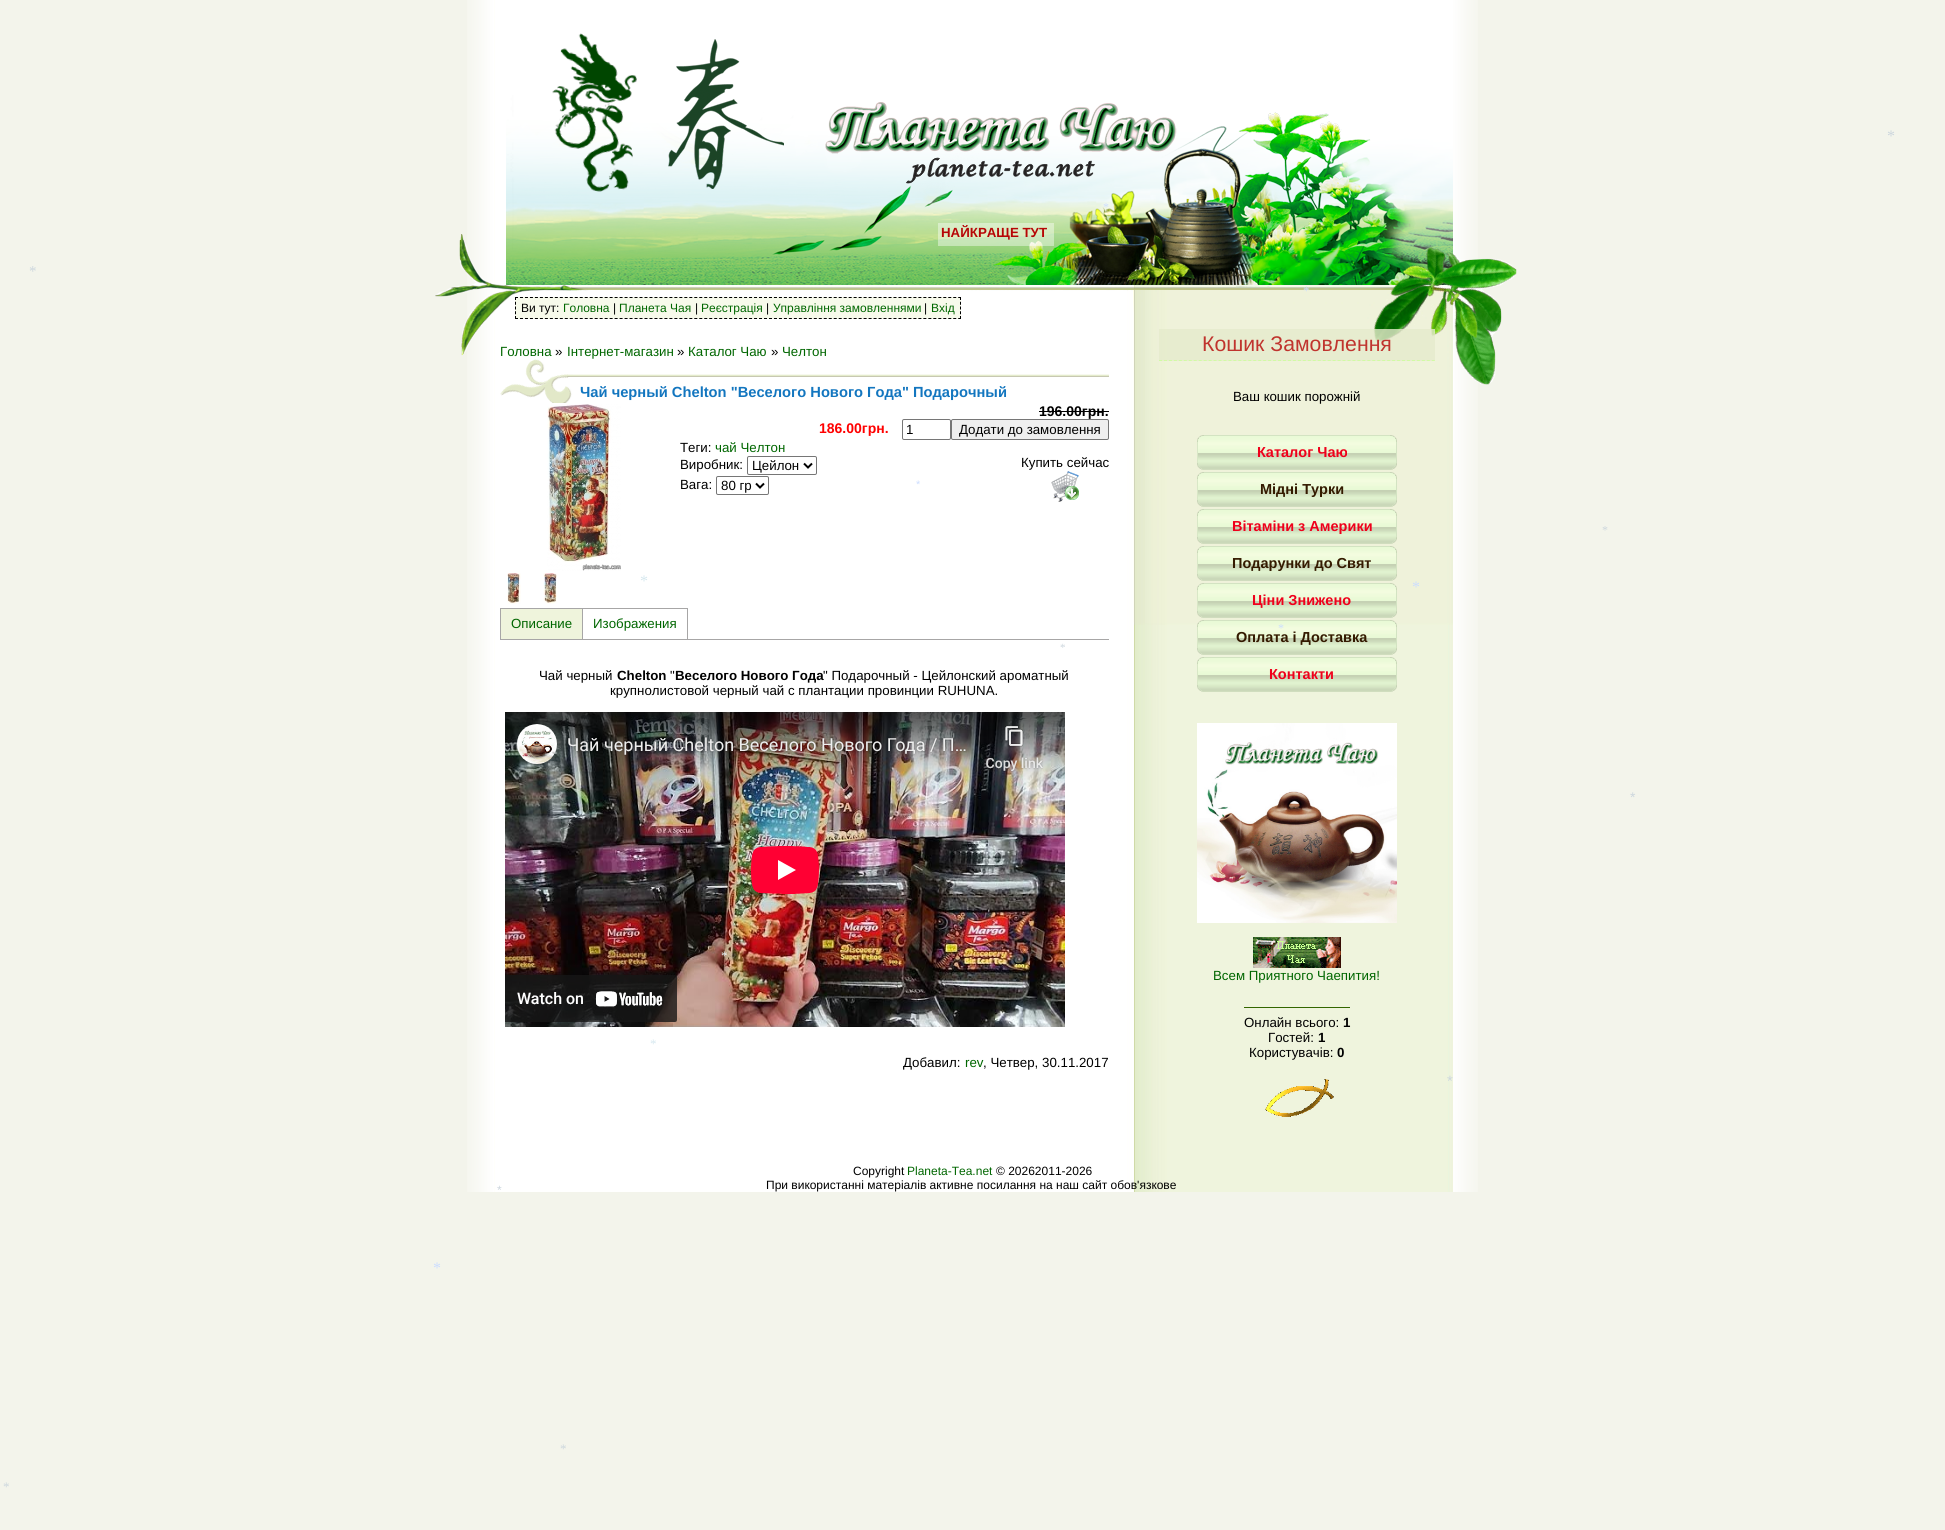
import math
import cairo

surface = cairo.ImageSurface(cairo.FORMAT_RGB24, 1945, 1530)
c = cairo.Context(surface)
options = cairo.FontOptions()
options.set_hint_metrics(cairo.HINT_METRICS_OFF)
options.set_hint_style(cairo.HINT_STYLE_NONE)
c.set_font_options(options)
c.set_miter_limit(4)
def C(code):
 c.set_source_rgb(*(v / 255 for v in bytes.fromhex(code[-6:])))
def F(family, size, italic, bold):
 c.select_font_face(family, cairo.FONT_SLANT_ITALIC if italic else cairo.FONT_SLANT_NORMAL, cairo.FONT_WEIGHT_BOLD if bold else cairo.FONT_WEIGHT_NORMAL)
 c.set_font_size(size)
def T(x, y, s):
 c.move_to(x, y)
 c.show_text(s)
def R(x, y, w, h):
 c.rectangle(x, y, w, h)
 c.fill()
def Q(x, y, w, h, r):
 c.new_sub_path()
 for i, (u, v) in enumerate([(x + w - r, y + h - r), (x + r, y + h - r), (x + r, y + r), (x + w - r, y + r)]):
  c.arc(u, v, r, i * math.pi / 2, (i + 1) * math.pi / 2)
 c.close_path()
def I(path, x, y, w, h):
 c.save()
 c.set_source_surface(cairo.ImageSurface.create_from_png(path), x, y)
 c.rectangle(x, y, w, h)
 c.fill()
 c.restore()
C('f3f4eb')
c.paint()
I('1.png',467,0,1011,1136)
I('2.png',435,0,1082,625)
F('Liberation Serif',16,0,0)
C('ccd6dd')
T(1887,141,'*')
F('Liberation Serif',12,0,0)
C('ccddff')
T(1103,211,'*')
F('Liberation Serif',15,0,0)
C('ccd6dd')
T(29,276,'*')
I('3.png',825,102,352,82)
F('Liberation Sans',13.3,0,1)
C('b60606')
T(941,237,'НАЙКРАЩЕ ТУТ')
C('f7faeb')
R(515,297,446,22)
c.new_path()
c.move_to(515,297.5)
c.line_to(961,297.5)
C('000000')
c.set_line_width(1)
c.set_dash([3,1.98])
c.stroke()
c.new_path()
c.move_to(960.5,297)
c.line_to(960.5,319)
c.set_dash([3,1.75])
c.stroke()
c.new_path()
c.move_to(515,318.5)
c.line_to(961,318.5)
c.set_dash([3,1.98])
c.stroke()
c.new_path()
c.move_to(515.5,297)
c.line_to(515.5,319)
c.set_dash([3,1.75])
c.stroke()
F('Liberation Sans',12,0,0)
T(521,312,'Ви тут:')
C('006600')
T(563,312,'Головна')
C('000000')
T(613,312,'|')
C('006600')
T(619,312,'Планета Чая')
C('000000')
T(695,312,'|')
C('006600')
T(701,312,'Реєстрація')
C('000000')
T(766,312,'|')
C('006600')
T(773,312,'Управління замовленнями')
C('000000')
T(924,312,'|')
C('006600')
T(931,312,'Вхід')
F('Liberation Sans',13.3,0,0)
T(500,356,'Головна')
C('000000')
T(555,356,'»')
C('006600')
T(567,356,'Інтернет-магазин')
C('000000')
T(677,356,'»')
C('006600')
T(688,356,'Каталог Чаю')
C('000000')
T(771,356,'»')
C('006600')
T(782,356,'Челтон')
I('4.png',500,359,609,44)
F('Liberation Sans',14.7,0,1)
C('1376bf')
T(580,397,'Чай черный Chelton "Веселого Нового Года" Подарочный')
I('5.png',547,404,74,167)
I('6.png',507,573,14,31)
I('7.png',543,573,14,31)
F('Liberation Sans',14,0,1)
C('000000')
T(1039,416,'196.00грн.')
R(1039,411,70,1)
C('ff0000')
T(819,433,'186.00грн.')
Q(902.5,419.5,48,20,1.5)
C('767676')
c.set_dash([])
c.stroke()
F('Liberation Sans',13.3,0,0)
C('000000')
T(906,434,'1')
C('efefef')
Q(951.5,419.5,157,20,1.5)
c.fill_preserve()
C('767676')
c.stroke()
C('000000')
T(959,434,'Додати до замовлення')
T(680,452,'Теги:')
C('006600')
T(715,452,'чай Челтон')
C('000000')
T(680,469,'Виробник:')
Q(747.5,456.5,69,18,1.5)
C('767676')
c.stroke()
c.new_path()
c.move_to(804,463.5)
c.line_to(808,467.5)
c.line_to(812,463.5)
C('000000')
c.set_line_width(2)
c.stroke()
T(752,470,'Цейлон')
T(680,489,'Вага:')
Q(716.5,476.5,52,18,1.5)
C('767676')
c.set_line_width(1)
c.stroke()
c.new_path()
c.move_to(756,483.5)
c.line_to(760,487.5)
c.line_to(764,483.5)
C('000000')
c.set_line_width(2)
c.stroke()
T(721,490,'80 гр')
T(1021,467,'Купить сейчас')
I('8.png',1051,471,28,31)
C('a7a6a6')
R(500,639,609,1)
R(500,608,1,32)
C('eff4dc')
R(501,609,81,30)
C('a7a6a6')
R(501,608,187,1)
R(582,608,1,31)
C('006600')
T(511,628,'Описание')
C('a7a6a6')
R(687,608,1,31)
C('006600')
T(593,628,'Изображения')
C('000000')
T(539,680,'Чай черный')
F('Liberation Sans',13.3,0,1)
T(617,680,'Chelton')
F('Liberation Sans',13.3,0,0)
T(670,680,'"')
F('Liberation Sans',13.3,0,1)
T(675,680,'Веселого Нового Года')
F('Liberation Sans',13.3,0,0)
T(823,680,'" Подарочный - Цейлонский ароматный')
T(610,695,'крупнолистовой черный чай с плантации провинции RUHUNA.')
I('9.png',505,712,560,315)
T(903,1067,'Добавил:')
C('006600')
T(965,1067,'rev')
C('000000')
T(983,1067,', Четвер, 30.11.2017')
c.set_source_rgba(0.898,0.922,0.8,0.8)
R(1159,329,276,32)
c.new_path()
c.move_to(1159,360.5)
c.line_to(1435,360.5)
C('d1fba4')
c.set_line_width(1)
c.set_dash([3,1.96])
c.stroke()
F('Liberation Sans',21.25,0,0)
C('c0342e')
T(1202,351,'Кошик Замовлення')
F('Liberation Sans',13.3,0,0)
C('000000')
T(1233,401,'Ваш кошик порожній')
I('10.png',1197,435,200,35)
F('Liberation Sans',14.5,0,1)
C('ef001b')
T(1257,457,'Каталог Чаю')
I('10.png',1197,472,200,35)
C('341a00')
T(1260,494,'Мідні Турки')
I('10.png',1197,509,200,35)
C('ef001b')
T(1232,531,'Вітаміни з Америки')
I('10.png',1197,546,200,35)
C('341a00')
T(1232,568,'Подарунки до Свят')
I('10.png',1197,583,200,35)
C('ef001b')
T(1252,605,'Ціни Знижено')
I('11.png',1197,620,200,35)
C('341a00')
T(1236,642,'Оплата і Доставка')
I('12.png',1197,657,200,35)
C('ef001b')
T(1269,679,'Контакти')
I('13.png',1197,723,200,200)
I('14.png',1253,937,88,31)
F('Liberation Sans',13.3,0,0)
C('006600')
T(1213,980,'Всем Приятного Чаепития!')
C('336600')
R(1244,1007,106,1)
C('000000')
T(1244,1027,'Онлайн всього:')
F('Liberation Sans',13.3,0,1)
T(1343,1027,'1')
F('Liberation Sans',13.3,0,0)
T(1268,1042,'Гостей:')
F('Liberation Sans',13.3,0,1)
T(1318,1042,'1')
F('Liberation Sans',13.3,0,0)
T(1249,1057,'Користувачів:')
F('Liberation Sans',13.3,0,1)
T(1337,1057,'0')
I('15.png',1265,1079,69,38)
F('Liberation Serif',13,0,0)
C('ccddff')
T(1303,295,'*')
F('Liberation Sans',11,0,0)
T(916,488,'*')
F('Liberation Serif',12,0,0)
C('ccd6dd')
T(1602,534,'*')
F('Liberation Serif',16,0,0)
C('d6e8ef')
T(640,586,'*')
C('ccddff')
T(1412,592,'*')
F('Liberation Serif',12,0,0)
T(1278,632,'*')
F('Liberation Serif',11,0,0)
C('ccd6dd')
T(1060,651,'*')
F('Liberation Sans',14,0,0)
T(1630,802,'*')
F('Liberation Serif',13,0,0)
C('f0ffff')
T(721,960,'*')
C('d6e8ef')
T(650,1048,'*')
F('Liberation Sans',15,0,0)
C('ccd6dd')
T(1447,1086,'*')
I('16.png',467,1136,1011,56)
F('Liberation Sans',12,0,0)
T(497,1194,'*')
F('Liberation Serif',16,0,0)
C('ccddff')
T(433,1273,'*')
F('Liberation Serif',13,0,0)
C('ccd6dd')
T(560,1453,'*')
T(3,1491,'*')
F('Liberation Sans',12,0,0)
C('000000')
T(853,1175,'Copyright')
C('006600')
T(907,1175,'Planeta-Tea.net')
C('000000')
T(996,1175,'© 20262011-2026')
T(766,1189,'При використанні матеріалів активне посилання на наш сайт обов\'язкове')
surface.write_to_png('o.png')
